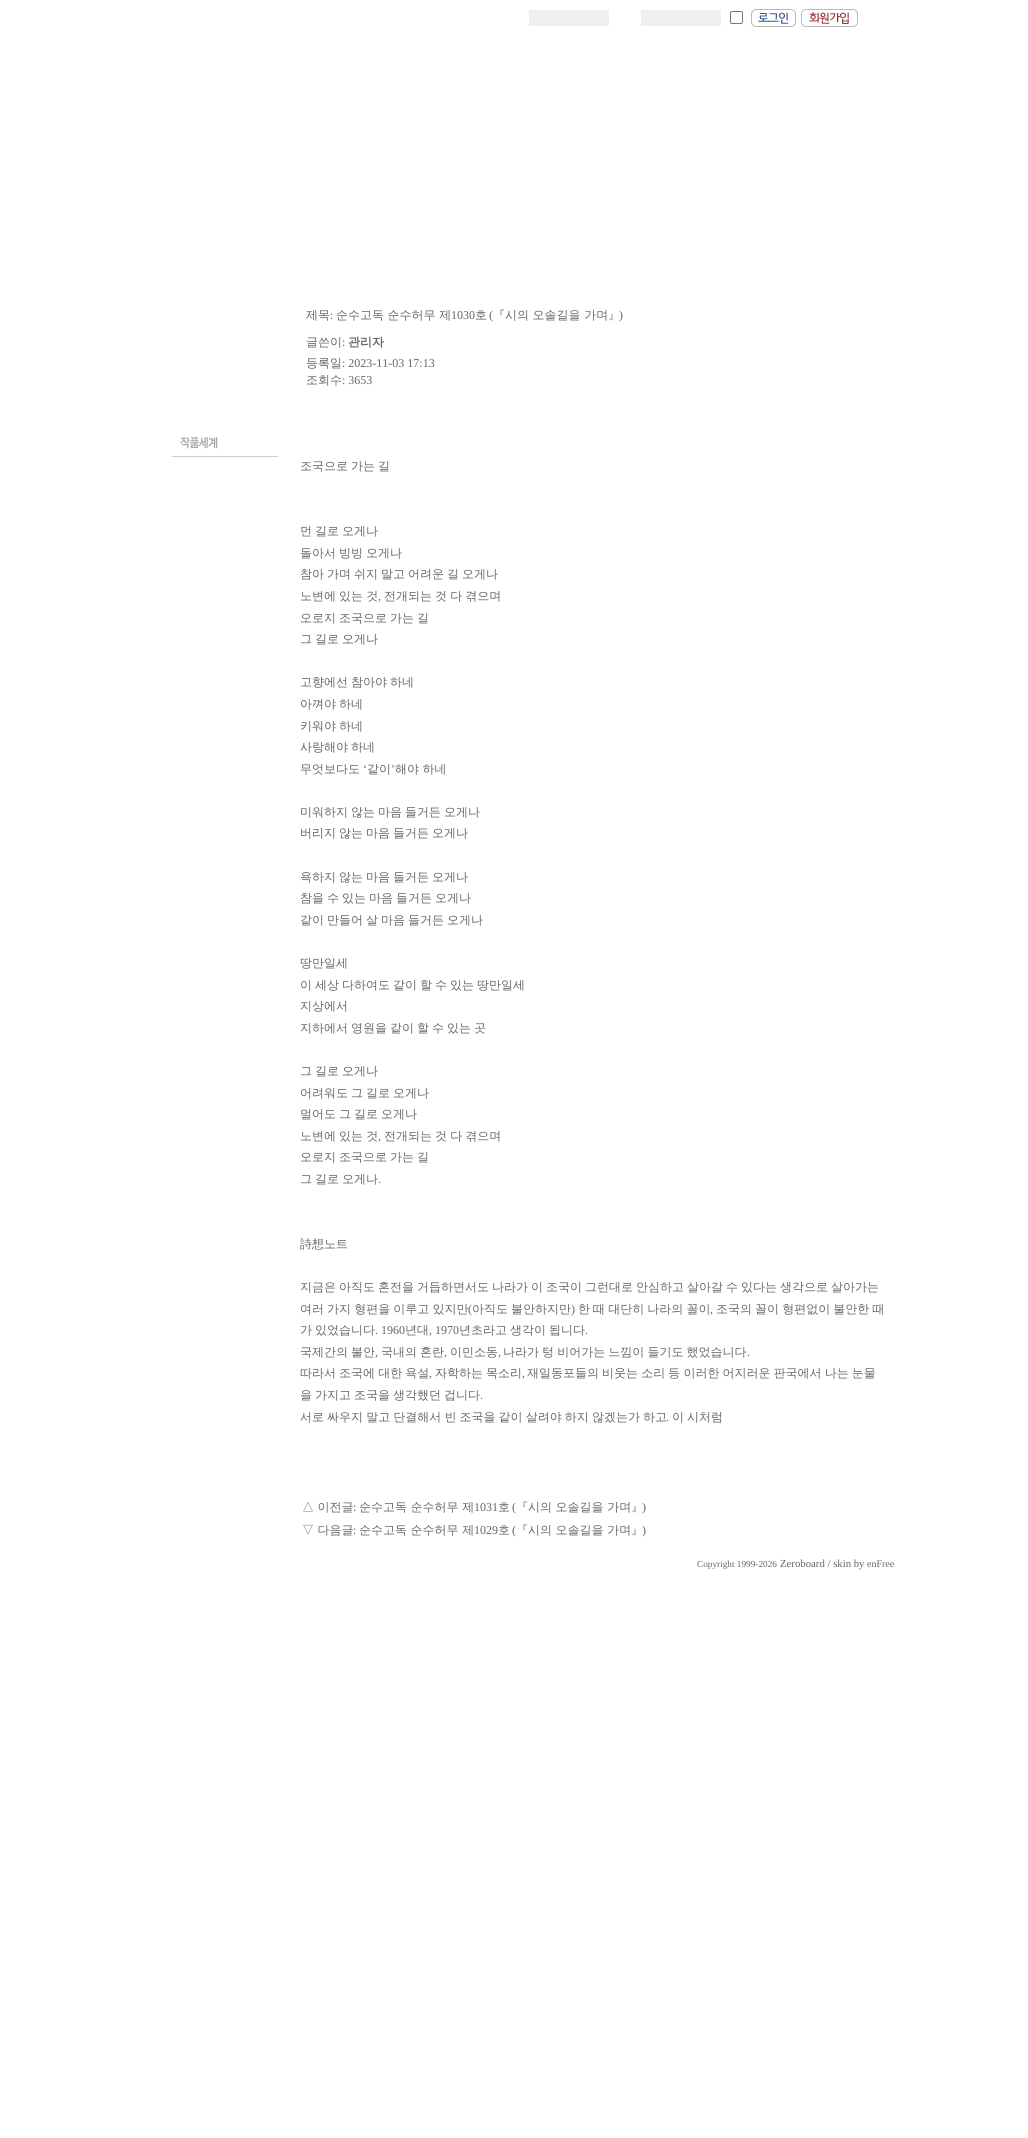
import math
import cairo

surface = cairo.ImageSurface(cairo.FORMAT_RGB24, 1028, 2138)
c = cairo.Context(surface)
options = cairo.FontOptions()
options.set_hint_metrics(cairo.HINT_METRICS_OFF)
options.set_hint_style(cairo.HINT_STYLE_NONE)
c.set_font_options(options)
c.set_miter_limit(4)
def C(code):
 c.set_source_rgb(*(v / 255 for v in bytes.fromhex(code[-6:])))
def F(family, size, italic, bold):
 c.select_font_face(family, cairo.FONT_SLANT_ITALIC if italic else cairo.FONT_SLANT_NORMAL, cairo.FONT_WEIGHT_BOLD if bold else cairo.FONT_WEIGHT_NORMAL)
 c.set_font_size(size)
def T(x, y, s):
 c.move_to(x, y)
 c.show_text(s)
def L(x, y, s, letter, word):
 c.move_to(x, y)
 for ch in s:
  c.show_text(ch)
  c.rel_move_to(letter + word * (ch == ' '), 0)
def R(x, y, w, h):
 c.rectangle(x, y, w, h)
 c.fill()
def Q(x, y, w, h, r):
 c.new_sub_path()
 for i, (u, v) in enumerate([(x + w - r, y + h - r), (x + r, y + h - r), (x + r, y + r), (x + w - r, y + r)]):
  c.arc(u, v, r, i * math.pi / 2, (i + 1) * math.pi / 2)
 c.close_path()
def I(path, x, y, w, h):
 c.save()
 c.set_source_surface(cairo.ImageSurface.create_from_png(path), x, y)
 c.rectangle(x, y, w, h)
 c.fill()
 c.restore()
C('ffffff')
c.paint()
C('efefef')
R(529,10,80,16)
R(641,10,80,16)
Q(730.5,11.5,12,12,1.5)
C('767676')
c.set_line_width(1)
c.stroke()
I('1.png',751,9,45,18)
I('2.png',801,9,57,18)
I('3.png',172,437,106,20)
F('WenQuanYi Zen Hei Medium',12,0,0)
C('666666')
T(306,319,'제목')
F('Liberation Serif',12,0,0)
T(330,319,':')
F('WenQuanYi Zen Hei Medium',12,0,0)
T(336,319,'순수고독 순수허무 제')
F('Liberation Serif',12,0,0)
T(451,319,'1030')
F('WenQuanYi Zen Hei Medium',12,0,0)
T(475,319,'호')
F('Liberation Serif',12,0,0)
T(489,319,'(')
F('WenQuanYi Zen Hei Medium',12,0,0)
T(493,319,'『시의 오솔길을 가며』')
F('Liberation Serif',12,0,0)
T(619,319,')')
F('WenQuanYi Zen Hei Medium',12,0,0)
T(306,346,'글쓴이')
F('Liberation Serif',12,0,0)
T(342,346,':')
F('WenQuanYi Zen Hei',12,0,1)
T(348,346,'관리자')
F('WenQuanYi Zen Hei Medium',12,0,0)
T(306,367,'등록일')
F('Liberation Serif',12,0,0)
T(342,367,': 2023-11-03 17:13')
F('WenQuanYi Zen Hei Medium',12,0,0)
T(306,384,'조회수')
F('Liberation Serif',12,0,0)
T(342,384,': 3653')
F('WenQuanYi Zen Hei Medium',12,0,0)
L(300,470,'조국으로 가는 길',0,-.6)
L(300,535,'먼 길로 오게나',0,-.6)
L(300,557,'돌아서 빙빙 오게나',0,-.6)
L(300,578,'참아 가며 쉬지 말고 어려운 길 오게나',0,-.6)
L(300,600,'노변에 있는 것',0,-.5)
F('Liberation Serif',12,0,0)
T(378,600,',')
F('WenQuanYi Zen Hei Medium',12,0,0)
L(384,600,'전개되는 것 다 겪으며',0,-.5)
L(300,622,'오로지 조국으로 가는 길',0,-.6)
L(300,643,'그 길로 오게나',0,-.6)
L(300,686,'고향에선 참아야 하네',0,-.6)
L(300,708,'아껴야 하네',0,-.6)
L(300,730,'키워야 하네',0,-.6)
L(300,751,'사랑해야 하네',0,-.6)
T(300,773,'무엇보다도')
F('Liberation Serif',12,0,0)
T(363,773,'‘')
F('WenQuanYi Zen Hei Medium',12,0,0)
T(367,773,'같이')
F('Liberation Serif',12,0,0)
T(391,773,'’')
F('WenQuanYi Zen Hei Medium',12,0,0)
T(395,773,'해야 하네')
L(300,816,'미워하지 않는 마음 들거든 오게나',0,-.6)
L(300,837,'버리지 않는 마음 들거든 오게나',0,-.6)
L(300,881,'욕하지 않는 마음 들거든 오게나',0,-.6)
L(300,902,'참을 수 있는 마음 들거든 오게나',0,-.6)
L(300,924,'같이 만들어 살 마음 들거든 오게나',0,-.6)
T(300,967,'땅만일세')
L(300,989,'이 세상 다하여도 같이 할 수 있는 땅만일세',0,-.6)
T(300,1010,'지상에서')
L(300,1032,'지하에서 영원을 같이 할 수 있는 곳',0,-.6)
L(300,1075,'그 길로 오게나',0,-.6)
L(300,1097,'어려워도 그 길로 오게나',0,-.6)
L(300,1118,'멀어도 그 길로 오게나',0,-.6)
L(300,1140,'노변에 있는 것',0,-.5)
F('Liberation Serif',12,0,0)
T(378,1140,',')
F('WenQuanYi Zen Hei Medium',12,0,0)
L(384,1140,'전개되는 것 다 겪으며',0,-.5)
L(300,1161,'오로지 조국으로 가는 길',0,-.6)
L(300,1183,'그 길로 오게나',0,-.6)
F('Liberation Serif',12,0,0)
T(378,1183,'.')
F('WenQuanYi Zen Hei Medium',12,0,0)
T(300,1248,'詩想노트')
L(300,1291,'지금은 아직도 혼전을 거듭하면서도 나라가 이 조국이 그런대로 안심하고 살아갈 수 있다는 생각으로 살아가는',0,-.6)
L(300,1313,'여러 가지 형편을 이루고 있지만',0,-.5)
F('Liberation Serif',12,0,0)
T(468,1313,'(')
F('WenQuanYi Zen Hei Medium',12,0,0)
L(472,1313,'아직도 불안하지만',0,-.5)
F('Liberation Serif',12,0,0)
T(571,1313,')')
F('WenQuanYi Zen Hei Medium',12,0,0)
L(578,1313,'한 때 대단히 나라의 꼴이',0,-.5)
F('Liberation Serif',12,0,0)
T(710,1313,',')
F('WenQuanYi Zen Hei Medium',12,0,0)
L(716,1313,'조국의 꼴이 형편없이 불안한 때',0,-.5)
T(300,1334,'가')
T(315,1334,'있었습니다')
F('Liberation Serif',12,0,0)
T(375,1334,'. 1960')
F('WenQuanYi Zen Hei Medium',12,0,0)
T(405,1334,'년대')
F('Liberation Serif',12,0,0)
T(429,1334,', 1970')
F('WenQuanYi Zen Hei Medium',12,0,0)
T(459,1334,'년초라고')
T(510,1334,'생각이')
T(549,1334,'됩니다')
F('Liberation Serif',12,0,0)
T(585,1334,'.')
F('WenQuanYi Zen Hei Medium',12,0,0)
L(300,1356,'국제간의 불안',0,-.5)
F('Liberation Serif',12,0,0)
T(375,1356,',')
F('WenQuanYi Zen Hei Medium',12,0,0)
L(381,1356,'국내의 혼란',0,-.5)
F('Liberation Serif',12,0,0)
T(444,1356,',')
F('WenQuanYi Zen Hei Medium',12,0,0)
T(450,1356,'이민소동')
F('Liberation Serif',12,0,0)
T(498,1356,',')
F('WenQuanYi Zen Hei Medium',12,0,0)
L(503,1356,'나라가 텅 비어가는 느낌이 들기도 했었습니다',0,-.5)
F('Liberation Serif',12,0,0)
T(747,1356,'.')
F('WenQuanYi Zen Hei Medium',12,0,0)
L(300,1377,'따라서 조국에 대한 욕설',0,-.5)
F('Liberation Serif',12,0,0)
T(429,1377,',')
F('WenQuanYi Zen Hei Medium',12,0,0)
L(435,1377,'자학하는 목소리',0,-.5)
F('Liberation Serif',12,0,0)
T(522,1377,',')
F('WenQuanYi Zen Hei Medium',12,0,0)
L(527,1377,'재일동포들의 비웃는 소리 등 이러한 어지러운 판국에서 나는 눈물',0,-.5)
L(300,1399,'을 가지고 조국을 생각했던 겁니다',0,-.6)
F('Liberation Serif',12,0,0)
T(480,1399,'.')
F('WenQuanYi Zen Hei Medium',12,0,0)
L(300,1421,'서로 싸우지 말고 단결해서 빈 조국을 같이 살려야 하지 않겠는가 하고',0,-.5)
F('Liberation Serif',12,0,0)
T(666,1421,'.')
F('WenQuanYi Zen Hei Medium',12,0,0)
L(672,1421,'이 시처럼',0,-.5)
T(302,1511,'△ 이전글')
F('Liberation Serif',12,0,0)
T(353,1511,':')
F('WenQuanYi Zen Hei Medium',12,0,0)
T(359,1511,'순수고독 순수허무 제')
F('Liberation Serif',12,0,0)
T(474,1511,'1031')
F('WenQuanYi Zen Hei Medium',12,0,0)
T(498,1511,'호')
F('Liberation Serif',12,0,0)
T(512,1511,'(')
F('WenQuanYi Zen Hei Medium',12,0,0)
T(516,1511,'『시의 오솔길을 가며』')
F('Liberation Serif',12,0,0)
T(642,1511,')')
F('WenQuanYi Zen Hei Medium',12,0,0)
T(302,1534,'▽ 다음글')
F('Liberation Serif',12,0,0)
T(353,1534,':')
F('WenQuanYi Zen Hei Medium',12,0,0)
T(359,1534,'순수고독 순수허무 제')
F('Liberation Serif',12,0,0)
T(474,1534,'1029')
F('WenQuanYi Zen Hei Medium',12,0,0)
T(498,1534,'호')
F('Liberation Serif',12,0,0)
T(512,1534,'(')
F('WenQuanYi Zen Hei Medium',12,0,0)
T(516,1534,'『시의 오솔길을 가며』')
F('Liberation Serif',12,0,0)
T(642,1534,')')
F('Liberation Serif',9.25,0,0)
T(697,1567,'Copyright 1999-2026')
F('Liberation Serif',10.75,0,0)
T(780,1567,'Zeroboard / skin by')
F('Liberation Serif',10,0,0)
T(867,1567,'enFree')
surface.write_to_png('o.png')
